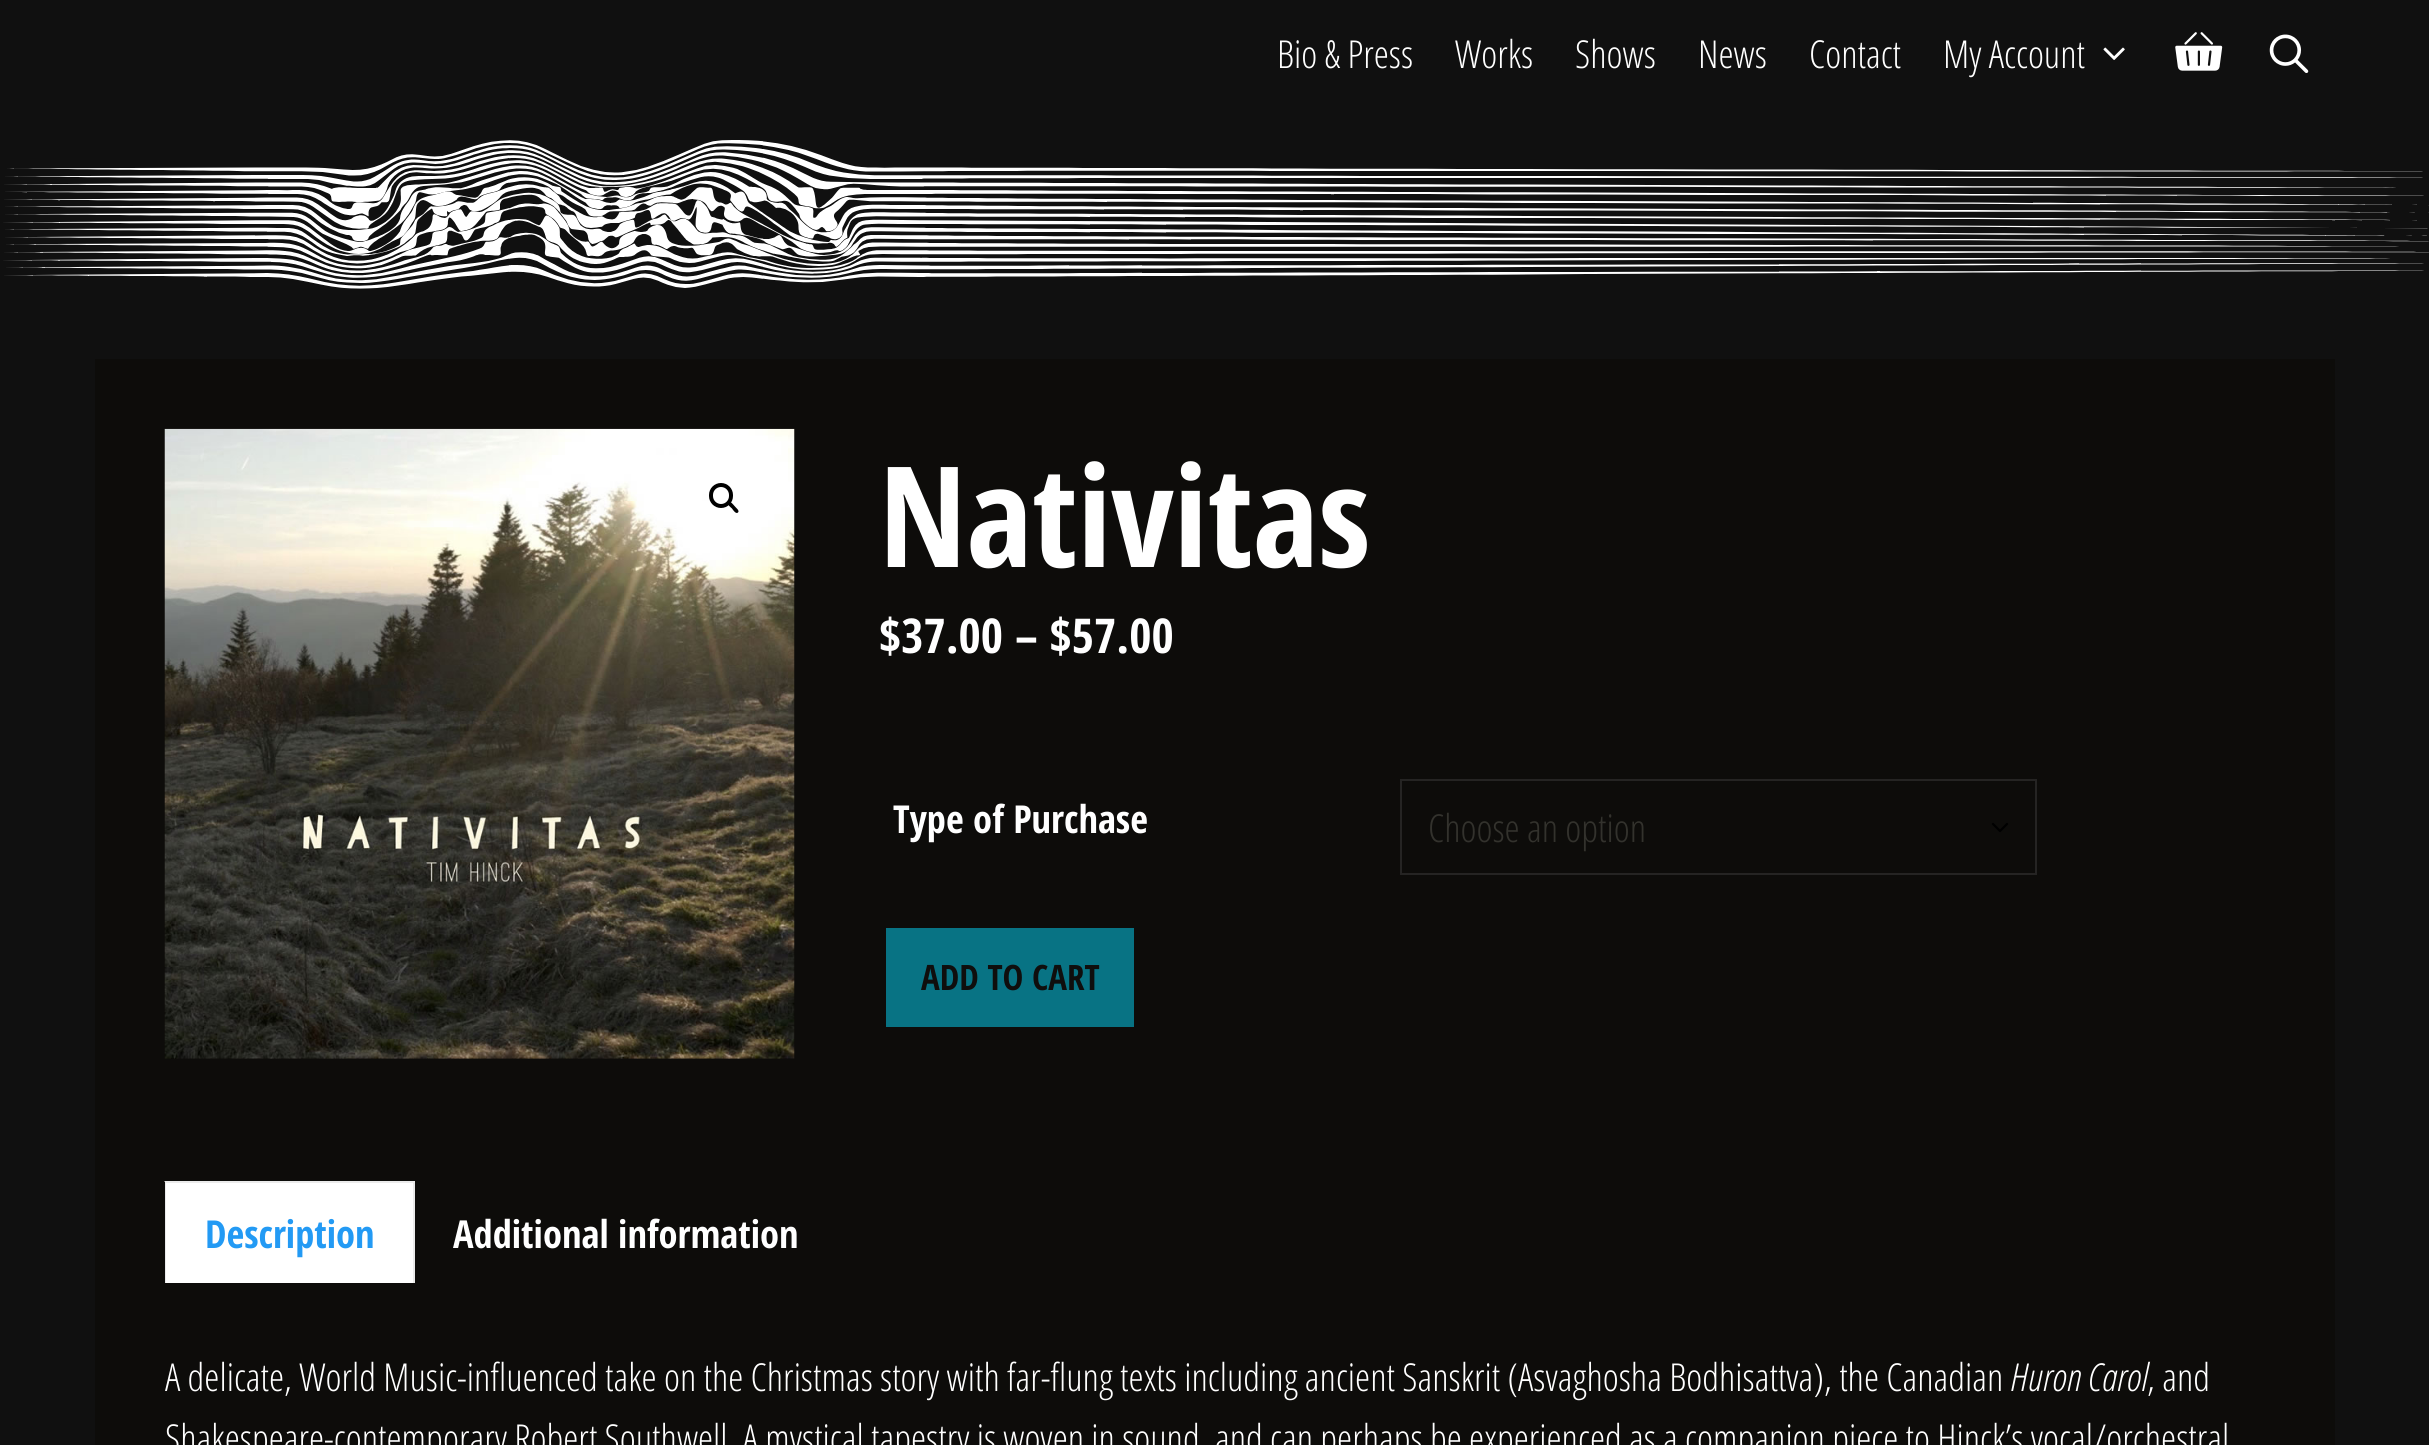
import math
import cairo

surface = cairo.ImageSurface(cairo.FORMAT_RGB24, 2429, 1445)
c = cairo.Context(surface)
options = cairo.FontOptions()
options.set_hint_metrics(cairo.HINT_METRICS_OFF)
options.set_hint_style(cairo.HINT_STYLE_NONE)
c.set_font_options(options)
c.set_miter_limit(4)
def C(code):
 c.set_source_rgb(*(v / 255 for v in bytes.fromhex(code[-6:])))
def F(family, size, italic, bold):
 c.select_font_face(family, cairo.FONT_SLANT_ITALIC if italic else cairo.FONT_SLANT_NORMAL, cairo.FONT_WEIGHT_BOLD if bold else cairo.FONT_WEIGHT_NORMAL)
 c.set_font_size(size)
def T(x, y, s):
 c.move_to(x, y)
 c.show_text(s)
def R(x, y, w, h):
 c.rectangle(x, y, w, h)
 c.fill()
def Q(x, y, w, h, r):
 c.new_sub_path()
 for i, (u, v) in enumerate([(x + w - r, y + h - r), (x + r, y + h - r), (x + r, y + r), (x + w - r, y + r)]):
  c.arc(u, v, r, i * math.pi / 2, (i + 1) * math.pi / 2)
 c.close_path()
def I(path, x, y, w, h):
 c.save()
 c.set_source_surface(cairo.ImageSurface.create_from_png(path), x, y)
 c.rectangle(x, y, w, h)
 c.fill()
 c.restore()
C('101010')
c.paint()
F('Open Sans Condensed Light',38.5,0,0)
C('ffffff')
T(1277,68,'Bio & Press')
T(1455,68,'Works')
T(1575,68,'Shows')
T(1698,68,'News')
T(1809,68,'Contact')
T(1943,68,'My Account')
I('1.png',2103,47,22,13)
I('2.png',2175,32,48,39)
I('3.png',2269,34,40,39)
I('4.png',3,140,2426,149)
C('0d0c0a')
R(95,359,2240,1086)
I('5.png',164,428,631,631)
Q(711,485,20,21,10)
C('000000')
c.set_line_width(4)
c.stroke()
c.new_path()
c.move_to(728.5,502.5)
c.curve_to(730.5,500.5,733.5,505,734.5,506)
c.curve_to(735.5,507.5,740,510.5,738,512.5)
c.curve_to(736,514.5,733,510,732,508.5)
c.curve_to(731,507.5,726.5,504.5,728.5,502.5)
c.close_path()
c.fill()
F('Open Sans Condensed',140,0,1)
C('ffffff')
T(879,567,'Nativitas')
F('Open Sans Condensed',48,0,1)
T(879,653,'$37.00 – $57.00')
F('Open Sans Condensed',38.5,0,1)
T(893,833,'Type of Purchase')
c.new_path()
c.move_to(1993,824)
c.line_to(2000,831)
c.line_to(2007,824)
C('000000')
c.set_line_width(2.3)
c.set_line_cap(cairo.LINE_CAP_ROUND)
c.set_line_join(cairo.LINE_JOIN_ROUND)
c.stroke()
c.rectangle(1401,780,635,94)
C('252423')
c.set_line_width(2)
c.set_line_cap(cairo.LINE_CAP_BUTT)
c.set_line_join(cairo.LINE_JOIN_MITER)
c.stroke()
F('Open Sans Condensed Light',38.5,0,0)
C('33322d')
T(1428,842,'Choose an option')
C('087384')
R(886,928,248,99)
F('Open Sans Condensed',35,0,1)
C('0f0e0d')
T(921,990,'ADD TO CART')
C('ffffff')
R(165,1181,250,102)
C('ebebeb')
c.new_path()
c.move_to(164,1181)
c.line_to(415,1181)
c.line_to(413,1183)
c.line_to(166,1183)
c.close_path()
c.fill()
c.set_source_rgba(0,0,0,0.08)
c.new_path()
c.move_to(415,1181)
c.line_to(415,1283)
c.line_to(413,1283)
c.line_to(413,1183)
c.close_path()
c.fill()
c.save()
c.rectangle(165,1181,2100,102)
c.clip()
c.new_path()
c.move_to(164,1283)
c.line_to(164,1181)
c.line_to(166,1183)
c.line_to(166,1283)
c.close_path()
c.fill()
c.restore()
F('Open Sans Condensed',38.5,0,1)
C('239af4')
T(205,1248,'Description')
C('ffffff')
T(453,1248,'Additional information')
F('Open Sans Condensed Light',38.5,0,0)
T(165,1391,'A delicate, World Music-influenced take on the Christmas story with far-flung texts including ancient Sanskrit (Asvaghosha Bodhisattva), the Canadian')
F('Open Sans Condensed Light',38.5,1,0)
T(2010,1391,'Huron Carol')
F('Open Sans Condensed Light',38.5,0,0)
T(2147,1391,', and')
T(165,1452,'Shakespeare-contemporary Robert Southwell. A mystical tapestry is woven in sound, and can perhaps be experienced as a companion piece to Hinck’s vocal/orchestral')
surface.write_to_png('o.png')
